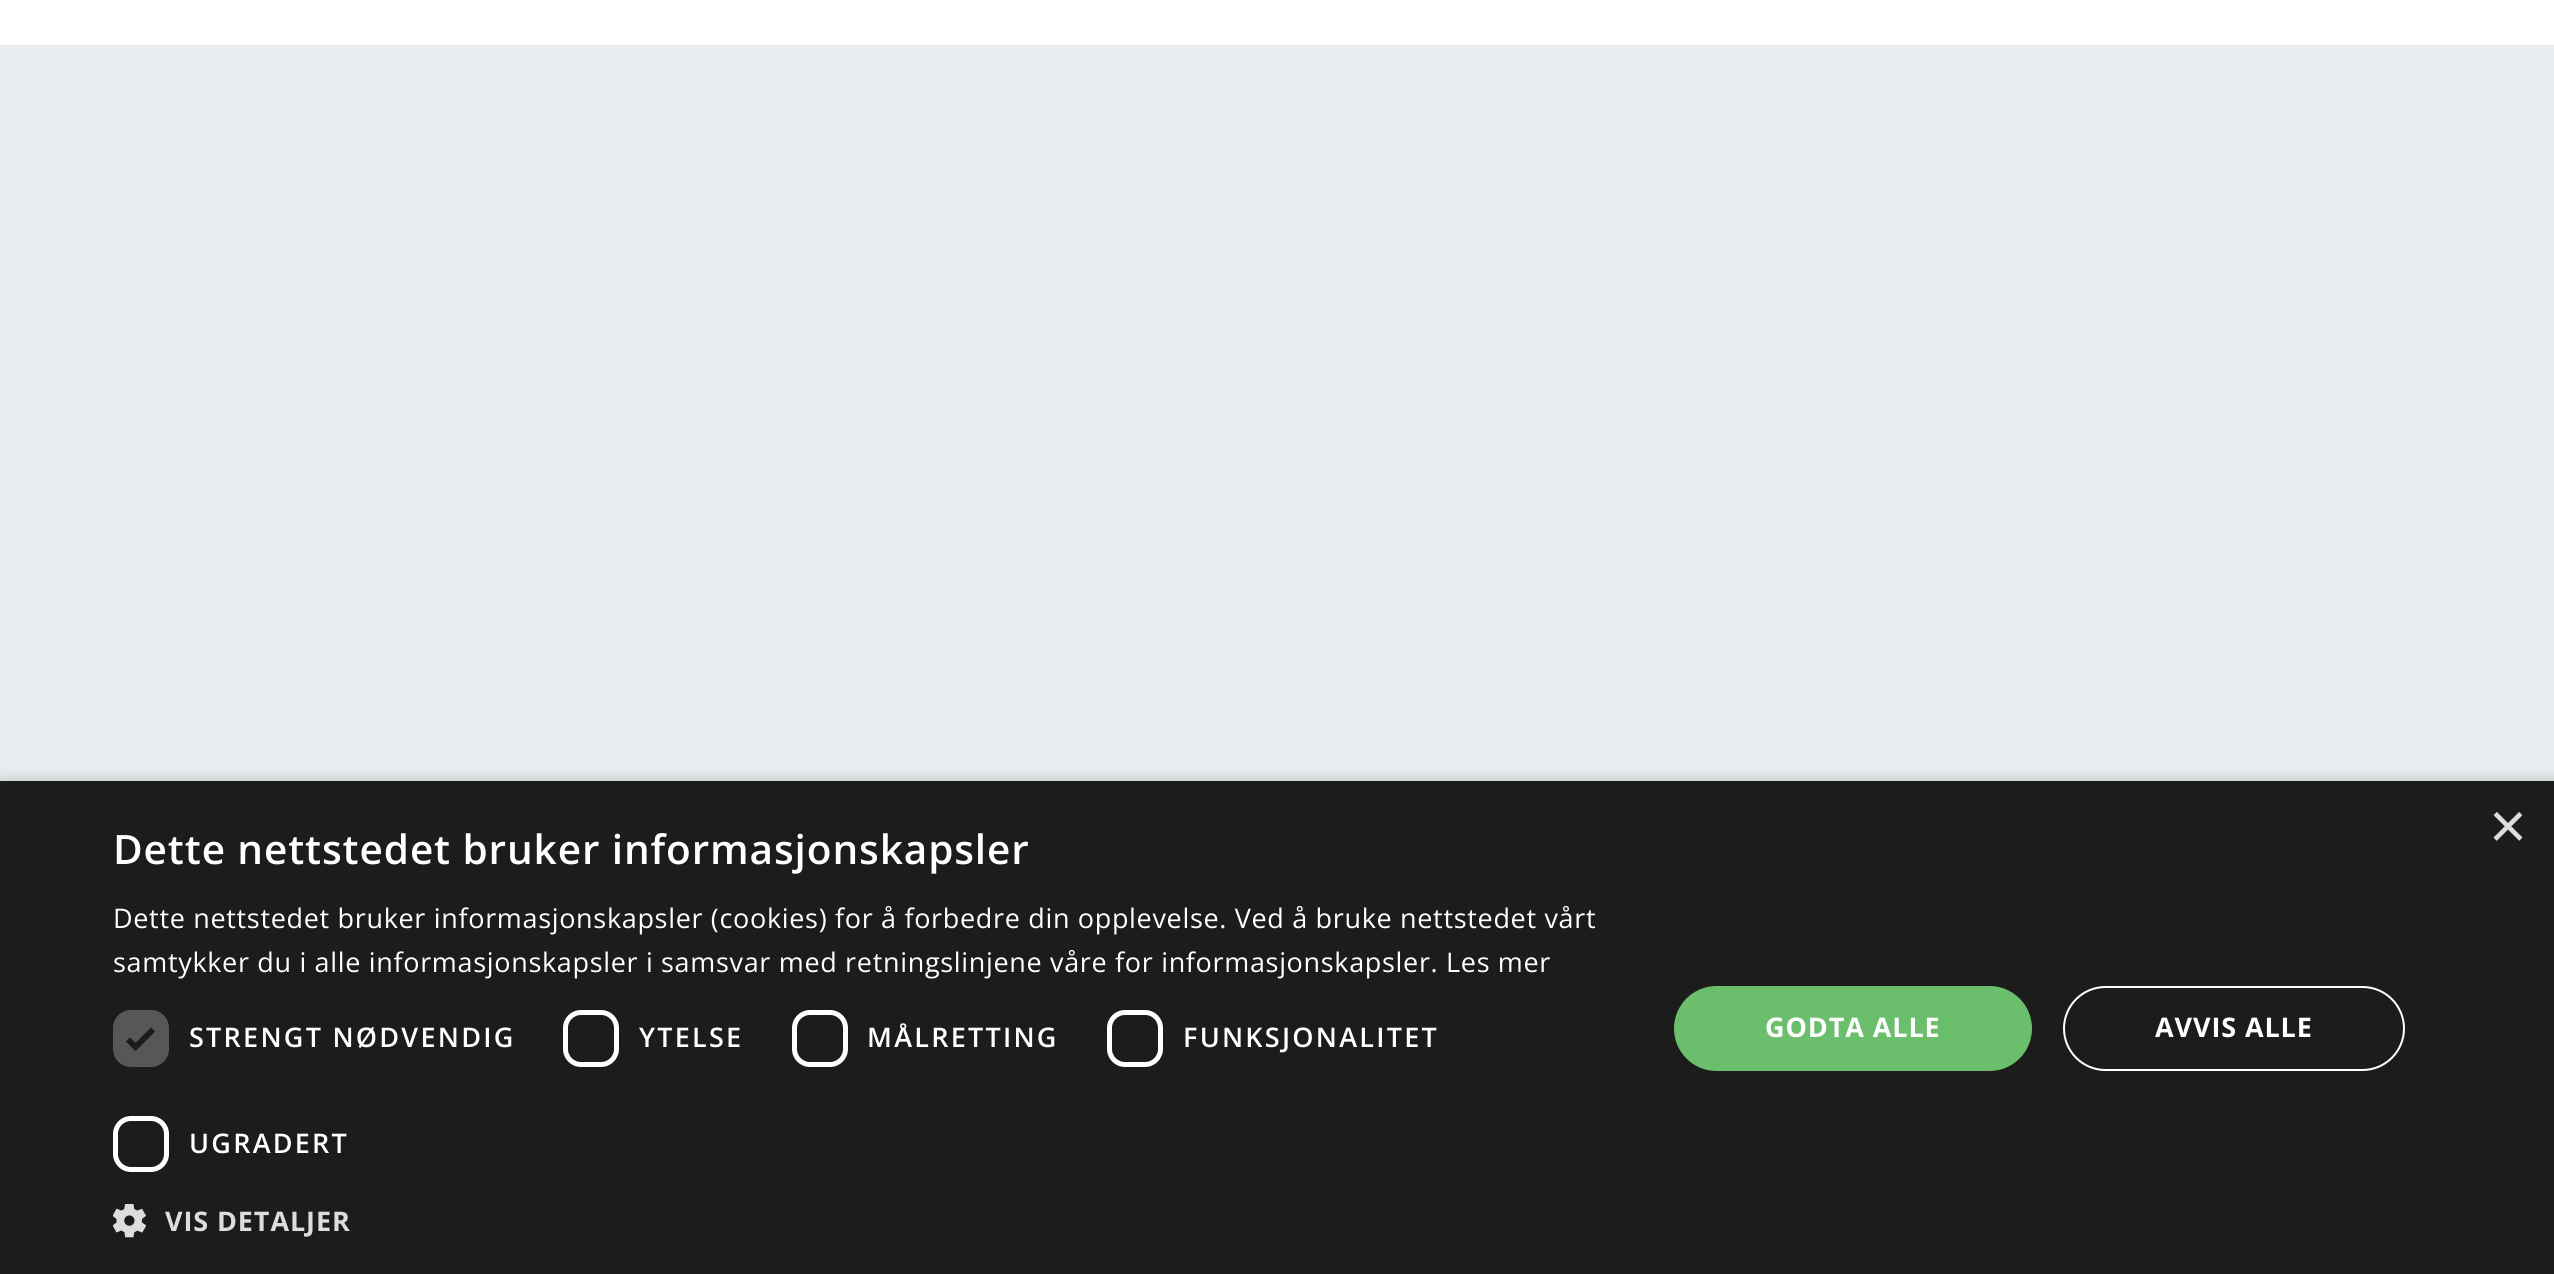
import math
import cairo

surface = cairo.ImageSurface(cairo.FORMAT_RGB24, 2554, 1274)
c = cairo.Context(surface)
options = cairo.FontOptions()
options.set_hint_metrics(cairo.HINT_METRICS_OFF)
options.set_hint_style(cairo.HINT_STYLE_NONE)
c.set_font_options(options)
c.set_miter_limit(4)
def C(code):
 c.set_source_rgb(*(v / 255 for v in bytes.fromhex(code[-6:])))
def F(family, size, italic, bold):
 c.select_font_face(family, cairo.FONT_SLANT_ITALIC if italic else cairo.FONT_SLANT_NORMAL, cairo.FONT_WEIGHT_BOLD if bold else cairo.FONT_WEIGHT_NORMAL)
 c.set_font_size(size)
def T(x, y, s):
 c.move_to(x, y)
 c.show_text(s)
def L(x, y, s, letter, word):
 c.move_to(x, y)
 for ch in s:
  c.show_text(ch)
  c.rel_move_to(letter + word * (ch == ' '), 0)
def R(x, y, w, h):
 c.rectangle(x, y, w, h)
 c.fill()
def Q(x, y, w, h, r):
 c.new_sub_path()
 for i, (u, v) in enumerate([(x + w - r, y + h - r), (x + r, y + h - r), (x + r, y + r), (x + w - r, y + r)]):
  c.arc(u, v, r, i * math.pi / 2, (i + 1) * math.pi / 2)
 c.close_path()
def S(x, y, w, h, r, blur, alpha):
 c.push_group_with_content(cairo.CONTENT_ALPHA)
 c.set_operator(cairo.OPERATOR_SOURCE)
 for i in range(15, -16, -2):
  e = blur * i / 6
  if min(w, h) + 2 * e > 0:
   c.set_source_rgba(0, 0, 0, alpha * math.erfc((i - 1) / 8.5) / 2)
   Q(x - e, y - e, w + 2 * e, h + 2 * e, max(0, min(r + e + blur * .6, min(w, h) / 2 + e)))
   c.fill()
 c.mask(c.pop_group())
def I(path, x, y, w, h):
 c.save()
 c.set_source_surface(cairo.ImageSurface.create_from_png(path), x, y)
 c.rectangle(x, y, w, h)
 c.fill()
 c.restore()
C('ffffff')
c.paint()
C('e8edef')
R(0,45,2554,736)
C('000000')
S(2,785,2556,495,0,9,.35)
C('1c1c1c')
R(0,781,2554,493)
F('Liberation Sans',65,0,0)
C('dddddd')
T(2489,848,'×')
F('Open Sans SemiBold',40.5,0,0)
C('ffffff')
L(113,864,'Dette nettstedet bruker informasjonskapsler',.9,0)
F('Open Sans',27,0,0)
L(113,928,'Dette nettstedet bruker informasjonskapsler (cookies) for å forbedre din opplevelse. Ved å bruke nettstedet vårt',.67,0)
L(113,972,'samtykker du i alle informasjonskapsler i samsvar med retningslinjene våre for informasjonskapsler. Les mer',.67,0)
C('575757')
Q(113,1010,56,57,18)
c.fill()
c.new_path()
c.move_to(128,1039.5)
c.line_to(135.5,1047)
c.line_to(153,1029.5)
C('1c1c1c')
c.set_line_width(5.9)
c.stroke()
F('Open Sans SemiBold',27,0,0)
C('ffffff')
L(189,1047,'STRENGT NØDVENDIG',2.25,0)
Q(565.5,1012.5,51,52,15.5)
c.set_line_width(5)
c.stroke()
L(639,1047,'YTELSE',2.25,0)
Q(794.5,1012.5,51,52,15.5)
c.stroke()
L(867,1047,'MÅLRETTING',2.25,0)
Q(1109.5,1012.5,51,52,15.5)
c.stroke()
L(1183,1047,'FUNKSJONALITET',2.25,0)
Q(115.5,1118.5,51,51,15.5)
c.stroke()
L(189,1153,'UGRADERT',2.25,0)
I('1.png',113,1204,33,34)
F('Open Sans',27,0,1)
C('dddddd')
L(165,1231,'VIS DETALJER',.9,0)
C('6bbe6b')
Q(1674,986,358,85,42.5)
c.fill()
C('ffffff')
L(1765,1037,'GODTA ALLE',.9,0)
Q(2064,987,340,83,41.5)
c.set_line_width(2)
c.stroke()
L(2155,1037,'AVVIS ALLE',.9,0)
surface.write_to_png('o.png')
